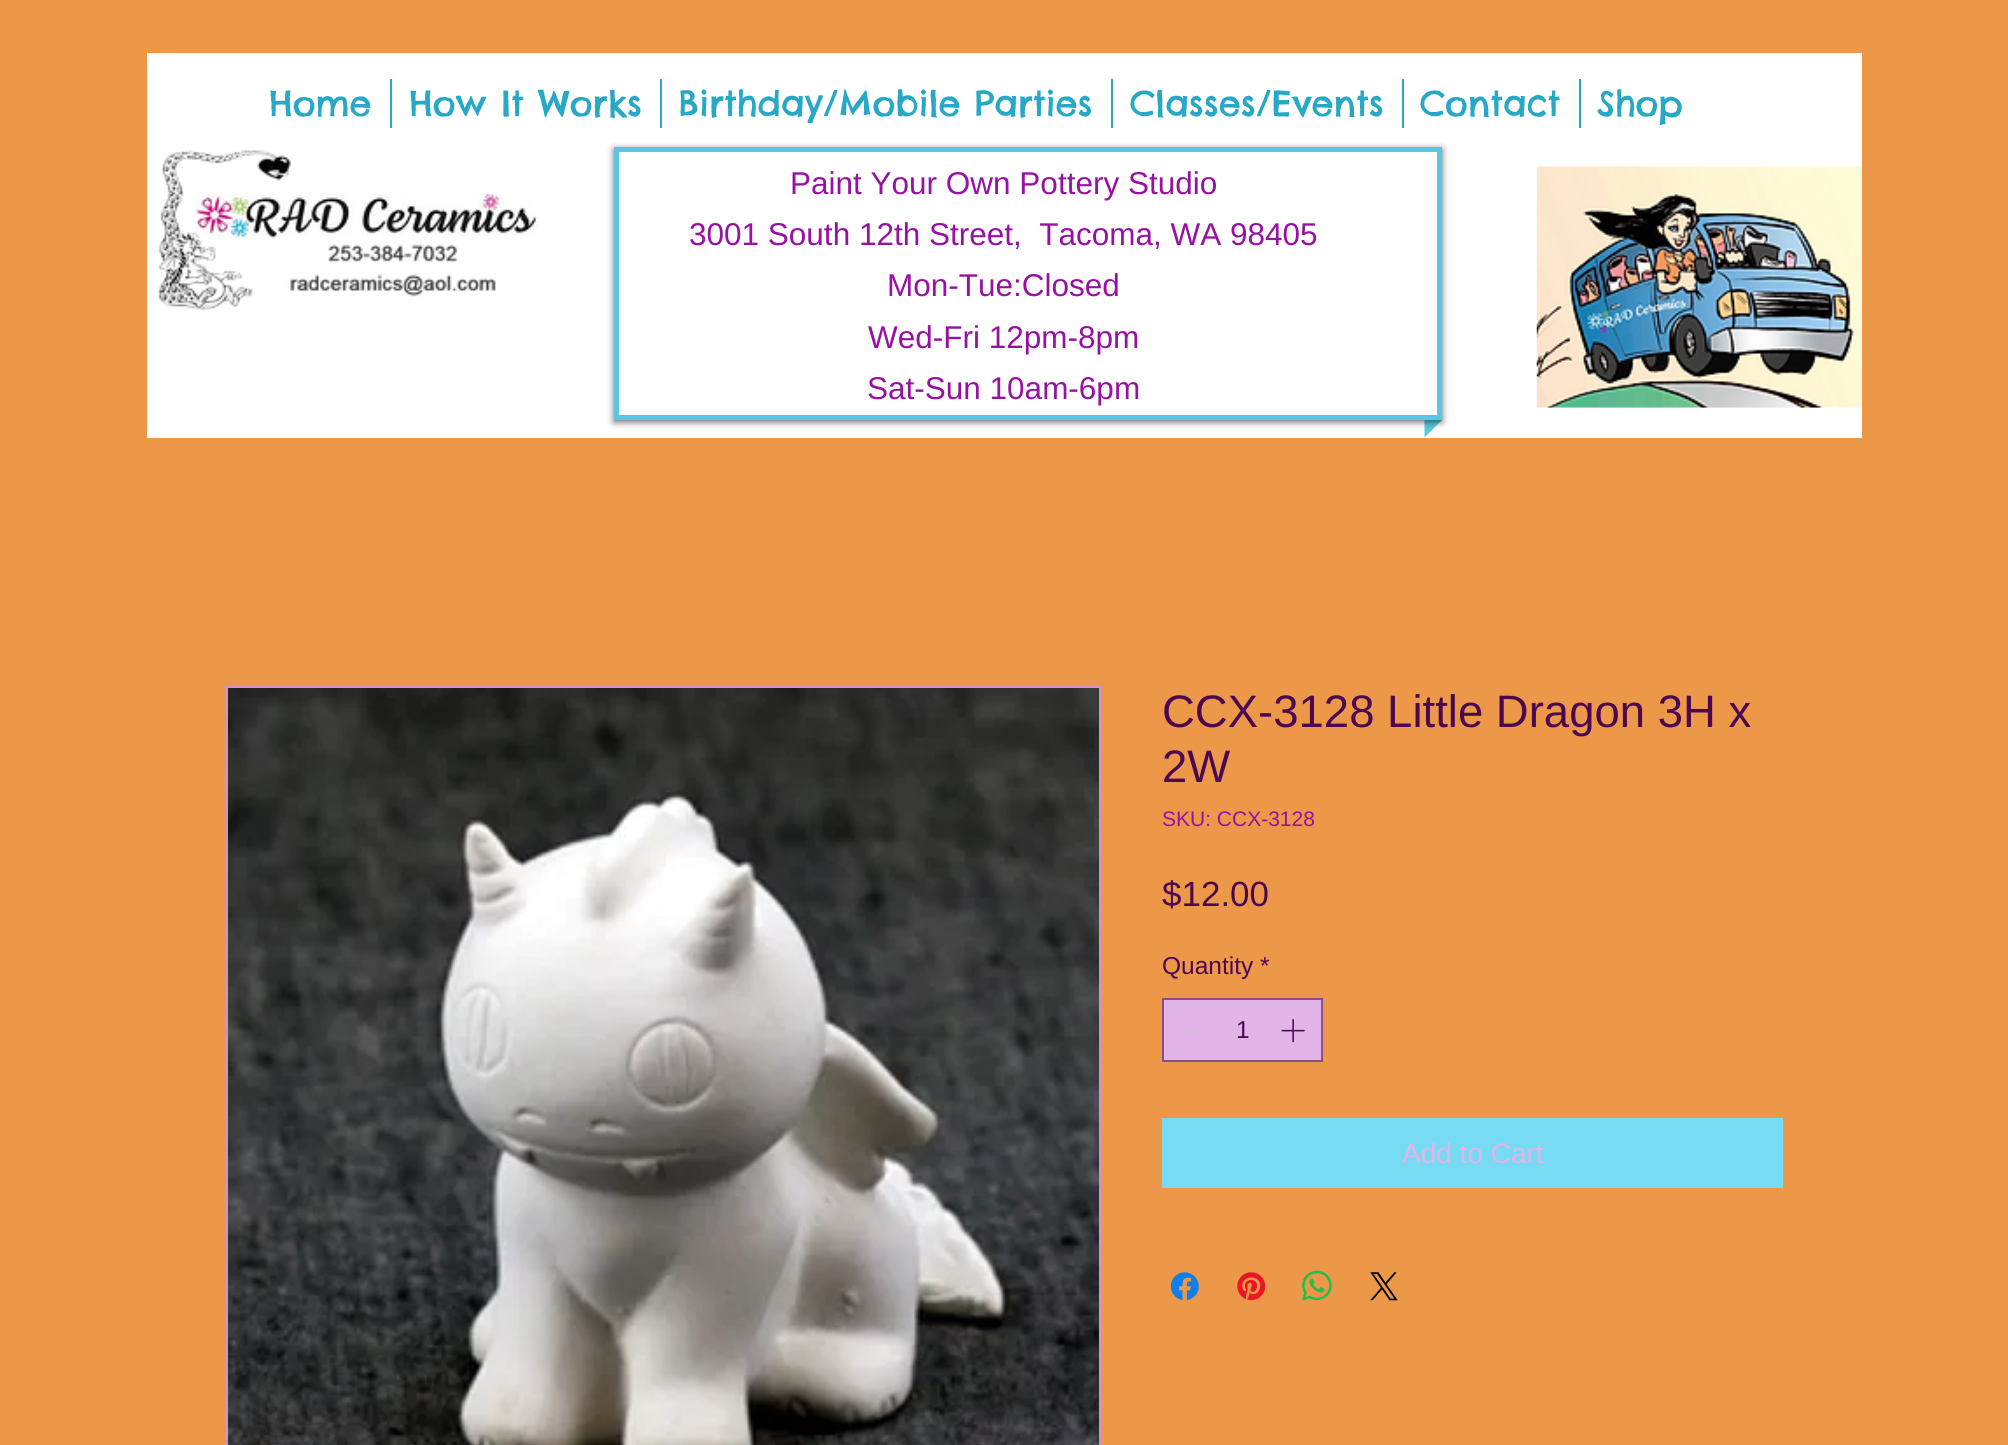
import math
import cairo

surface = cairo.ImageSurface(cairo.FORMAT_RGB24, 2008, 1445)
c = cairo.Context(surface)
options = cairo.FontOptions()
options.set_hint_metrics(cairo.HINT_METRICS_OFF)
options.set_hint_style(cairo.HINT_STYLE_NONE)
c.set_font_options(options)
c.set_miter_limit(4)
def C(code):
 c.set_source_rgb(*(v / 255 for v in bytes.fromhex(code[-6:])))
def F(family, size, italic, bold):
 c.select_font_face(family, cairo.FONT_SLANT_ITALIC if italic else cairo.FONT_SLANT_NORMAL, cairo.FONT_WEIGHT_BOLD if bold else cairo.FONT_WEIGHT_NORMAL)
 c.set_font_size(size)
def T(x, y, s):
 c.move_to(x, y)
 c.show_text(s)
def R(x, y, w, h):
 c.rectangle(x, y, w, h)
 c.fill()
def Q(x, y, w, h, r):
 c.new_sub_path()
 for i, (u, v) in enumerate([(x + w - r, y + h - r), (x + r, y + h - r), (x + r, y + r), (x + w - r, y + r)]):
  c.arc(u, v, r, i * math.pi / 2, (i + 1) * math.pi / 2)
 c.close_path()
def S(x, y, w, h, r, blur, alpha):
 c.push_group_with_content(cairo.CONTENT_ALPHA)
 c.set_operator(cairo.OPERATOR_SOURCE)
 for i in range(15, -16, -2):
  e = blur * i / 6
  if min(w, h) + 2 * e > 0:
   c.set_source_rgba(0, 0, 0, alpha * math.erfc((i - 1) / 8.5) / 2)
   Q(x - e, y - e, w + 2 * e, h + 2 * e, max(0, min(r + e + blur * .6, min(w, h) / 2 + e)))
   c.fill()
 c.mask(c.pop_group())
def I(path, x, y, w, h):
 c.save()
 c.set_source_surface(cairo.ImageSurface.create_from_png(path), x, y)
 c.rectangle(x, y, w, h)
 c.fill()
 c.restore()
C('ed9749')
c.paint()
C('ffffff')
R(147,53,1715,385)
F('Chelsea Market',35,0,0)
C('27a8c7')
T(269,116,'Home')
R(390,79,2,49)
T(409,116,'How It Works')
R(660,79,2,49)
T(678,116,'Birthday/Mobile Parties')
R(1111,79,2,49)
T(1130,116,'Classes/Events')
R(1402,79,2,49)
T(1420,116,'Contact')
R(1579,79,2,49)
T(1597,116,'Shop')
I('1.png',158,150,381,160)
C('59c7e0')
c.new_path()
c.move_to(1424.5,420)
c.line_to(1442,420)
c.line_to(1424.5,437.5)
c.close_path()
c.fill()
C('000000')
S(614,149,828,273,0,3.5,.6)
C('ffffff')
c.rectangle(616.5,149.5,823,268)
c.fill_preserve()
C('59c7e0')
c.set_line_width(5)
c.stroke()
F('Liberation Sans',31.5,0,0)
C('9711a3')
T(790,194,'Paint Your Own Pottery Studio')
T(689,245,'3001 South 12th Street,  Tacoma, WA 98405')
T(887,296,'Mon-Tue:Closed')
T(868,348,'Wed-Fri 12pm-8pm')
T(867,399,'Sat-Sun 10am-6pm')
I('2.png',1536,166,326,242)
c.rectangle(227,687,873,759)
C('cb93d1')
c.set_line_width(2)
c.stroke()
I('3.png',228,688,871,757)
F('Liberation Sans',45.5,0,0)
C('4b0851')
T(1162,727,'CCX-3128 Little Dragon 3H x')
T(1162,782,'2W')
F('Liberation Sans',21,0,0)
C('9711a3')
T(1162,826,'SKU: CCX-3128')
F('Liberation Sans',35,0,0)
C('4b0851')
T(1162,906,'$12.00')
F('Liberation Sans',24.5,0,0)
T(1162,974,'Quantity *')
C('e3b4e8')
c.rectangle(1163,999,159,62)
c.fill_preserve()
C('884d8d')
c.stroke()
C('d5bed8')
R(1182,1030,23,2)
C('4b0851')
T(1236,1038,'1')
I('4.png',1281,1019,24,24)
C('77dbf3')
R(1162,1118,621,70)
F('Liberation Sans',28,0,0)
C('e3b4e8')
T(1402,1163,'Add to Cart')
I('5.png',1170,1272,29,28)
I('6.png',1237,1272,29,29)
I('7.png',1302,1270,30,31)
I('8.png',1370,1272,28,29)
surface.write_to_png('o.png')
